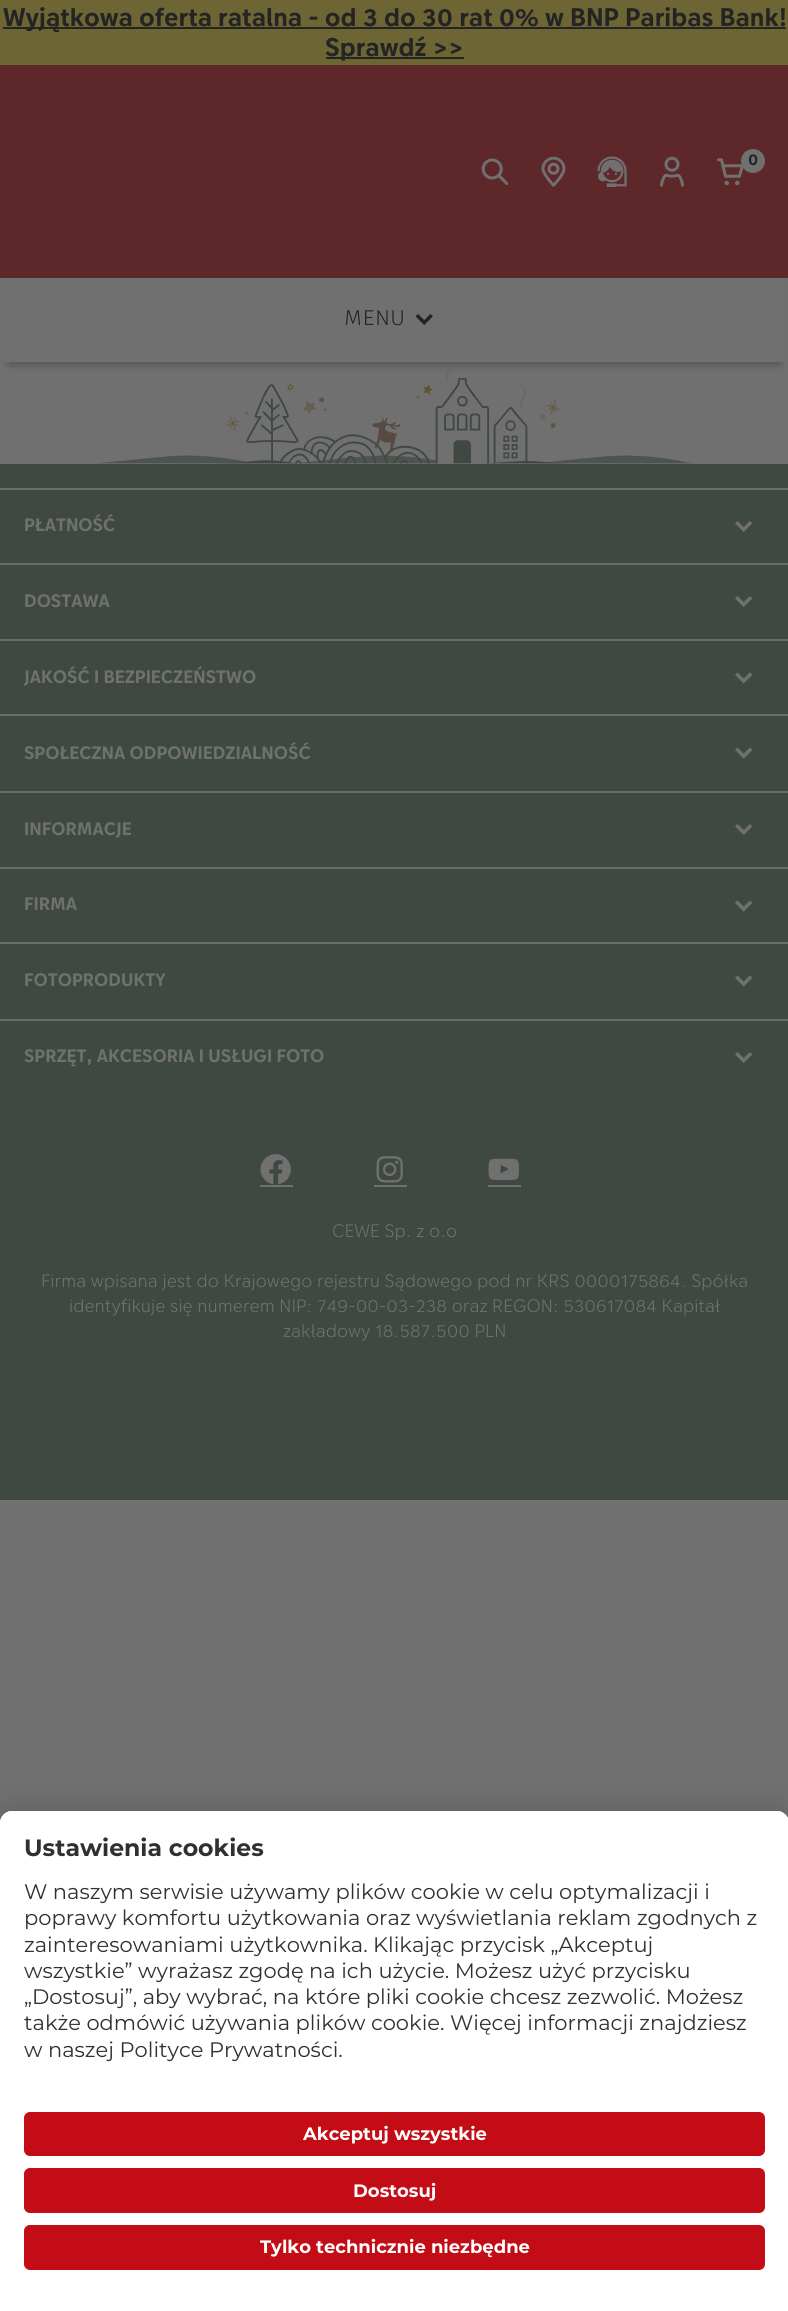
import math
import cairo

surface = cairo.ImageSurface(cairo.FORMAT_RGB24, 788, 2311)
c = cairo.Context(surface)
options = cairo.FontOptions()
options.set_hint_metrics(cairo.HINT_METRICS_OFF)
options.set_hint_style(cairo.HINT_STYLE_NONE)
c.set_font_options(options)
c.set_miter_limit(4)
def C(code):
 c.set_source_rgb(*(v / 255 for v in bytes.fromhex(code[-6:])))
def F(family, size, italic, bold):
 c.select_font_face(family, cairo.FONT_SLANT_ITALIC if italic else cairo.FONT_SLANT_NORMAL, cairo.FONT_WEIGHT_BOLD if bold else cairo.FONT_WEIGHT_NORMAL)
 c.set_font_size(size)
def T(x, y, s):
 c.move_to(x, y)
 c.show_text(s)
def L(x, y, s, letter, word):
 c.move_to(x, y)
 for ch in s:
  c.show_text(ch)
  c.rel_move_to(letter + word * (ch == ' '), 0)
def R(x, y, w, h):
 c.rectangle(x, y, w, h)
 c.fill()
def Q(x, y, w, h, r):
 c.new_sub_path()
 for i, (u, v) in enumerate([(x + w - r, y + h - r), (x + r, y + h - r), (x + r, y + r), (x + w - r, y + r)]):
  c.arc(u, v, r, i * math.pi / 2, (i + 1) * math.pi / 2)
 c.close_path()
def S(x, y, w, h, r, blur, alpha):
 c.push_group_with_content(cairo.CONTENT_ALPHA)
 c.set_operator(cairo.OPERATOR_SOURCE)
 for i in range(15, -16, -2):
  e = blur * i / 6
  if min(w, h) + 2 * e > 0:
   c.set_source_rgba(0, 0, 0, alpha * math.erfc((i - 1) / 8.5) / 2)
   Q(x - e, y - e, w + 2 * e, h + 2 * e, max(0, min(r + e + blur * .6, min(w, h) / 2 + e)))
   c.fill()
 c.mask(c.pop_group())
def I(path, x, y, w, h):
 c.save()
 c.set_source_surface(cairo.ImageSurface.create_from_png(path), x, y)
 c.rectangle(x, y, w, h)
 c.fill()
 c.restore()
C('707070')
c.paint()
C('6d6533')
R(0,0,788,65)
C('242424')
R(3,27,783,2)
F('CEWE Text',25.5,0,1)
T(3,26,'Wyjątkowa oferta ratalna - od 3 do 30 rat 0% w BNP Paribas Bank!')
R(326,57,138,2)
T(325,56,'Sprawdź >>')
I('7.png',95,363,599,101)
C('545454')
S(9,86,771,279,0,4.5,1)
C('5e272a')
R(0,65,788,213)
I('1.png',481,158,28,27)
I('2.png',541,156,25,31)
I('3.png',597,156,30,32)
I('4.png',660,156,24,31)
I('5.png',717,158,27,28)
C('707070')
c.arc(753,161,12,0,2 * math.pi)
c.fill()
F('CEWE Text',16,0,1)
C('242424')
T(748,165,'0')
C('707070')
R(3,278,783,84)
F('CEWE Text Light',21,0,0)
C('242424')
L(344,325,'MENU',1,0)
I('6.png',415,314,18,11)
C('3f4941')
R(0,464,788,1036)
C('6b6b6b')
R(0,488,788,2)
F('CEWE Text',18,0,1)
C('707070')
T(24,531,'PŁATNOŚĆ')
I('8.png',735,521,18,11)
C('6b6b6b')
R(0,563,788,2)
C('707070')
T(24,607,'DOSTAWA')
I('8.png',735,596,18,11)
C('6b6b6b')
R(0,639,788,2)
C('707070')
T(24,683,'JAKOŚĆ I BEZPIECZEŃSTWO')
I('9.png',735,672,18,12)
C('6b6b6b')
R(0,714,788,2)
C('707070')
T(24,759,'SPOŁECZNA ODPOWIEDZIALNOŚĆ')
I('9.png',735,747,18,12)
C('6b6b6b')
R(0,791,788,2)
C('707070')
T(24,835,'INFORMACJE')
I('8.png',735,824,18,11)
C('6b6b6b')
R(0,867,788,2)
C('707070')
T(24,910,'FIRMA')
I('9.png',735,900,18,12)
C('6b6b6b')
R(0,942,788,2)
C('707070')
T(24,986,'FOTOPRODUKTY')
I('9.png',735,975,18,12)
C('6b6b6b')
R(0,1019,788,2)
C('707070')
T(24,1062,'SPRZĘT, AKCESORIA I USŁUGI FOTO')
I('8.png',735,1052,18,11)
I('10.png',260,1154,31,31)
R(260,1185,33,2)
I('11.png',376,1156,27,27)
R(374,1185,33,2)
I('12.png',488,1158,31,23)
R(488,1185,33,2)
F('CEWE Text Light',18,0,0)
T(332,1237,'CEWE Sp. z o.o')
T(41,1287,'Firma wpisana jest do Krajowego rejestru Sądowego pod nr KRS 0000175864. Spółka')
T(69,1312,'identyfikuje się numerem NIP: 749-00-03-238 oraz REGON: 530617084 Kapitał')
T(283,1337,'zakładowy 18.587.500 PLN')
C('000000')
S(0,1841,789,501,12,21,.3)
S(0,1818,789,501,12,19.5,.22)
C('ffffff')
c.new_path()
c.move_to(12,1811)
c.line_to(777,1811)
c.curve_to(783.5,1811,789,1816.5,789,1823)
c.line_to(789,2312)
c.line_to(0,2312)
c.line_to(0,1823)
c.curve_to(0,1816.5,5.5,1811,12,1811)
c.close_path()
c.fill()
c.new_path()
c.move_to(12,1811)
c.line_to(777,1811)
c.curve_to(783.5,1811,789,1816.5,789,1823)
c.line_to(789,2094)
c.line_to(0,2094)
c.line_to(0,1823)
c.curve_to(0,1816.5,5.5,1811,12,1811)
c.close_path()
c.fill()
F('Montserrat',23.6,0,1)
C('303030')
T(24,1856,'Ustawienia cookies')
F('Montserrat',21,0,0)
T(24,1899,'W naszym serwisie używamy plików cookie w celu optymalizacji i')
T(24,1925,'poprawy komfortu użytkowania oraz wyświetlania reklam zgodnych z')
T(24,1952,'zainteresowaniami użytkownika. Klikając przycisk „Akceptuj')
T(24,1978,'wszystkie” wyrażasz zgodę na ich użycie. Możesz użyć przycisku')
T(24,2004,'„Dostosuj”, aby wybrać, na które pliki cookie chcesz zezwolić. Możesz')
T(24,2030,'także odmówić używania plików cookie. Więcej informacji znajdziesz')
T(24,2057,'w naszej Polityce Prywatności.')
C('c30c15')
Q(24,2112,741,44,6)
c.fill()
F('Montserrat',18,0,1)
C('ffffff')
T(303,2140,'Akceptuj wszystkie')
C('c30c15')
Q(24,2168,741,45,6)
c.fill()
C('ffffff')
T(353,2197,'Dostosuj')
C('c30c15')
Q(24,2225,741,45,6)
c.fill()
C('ffffff')
T(260,2253,'Tylko technicznie niezbędne')
surface.write_to_png('o.png')
